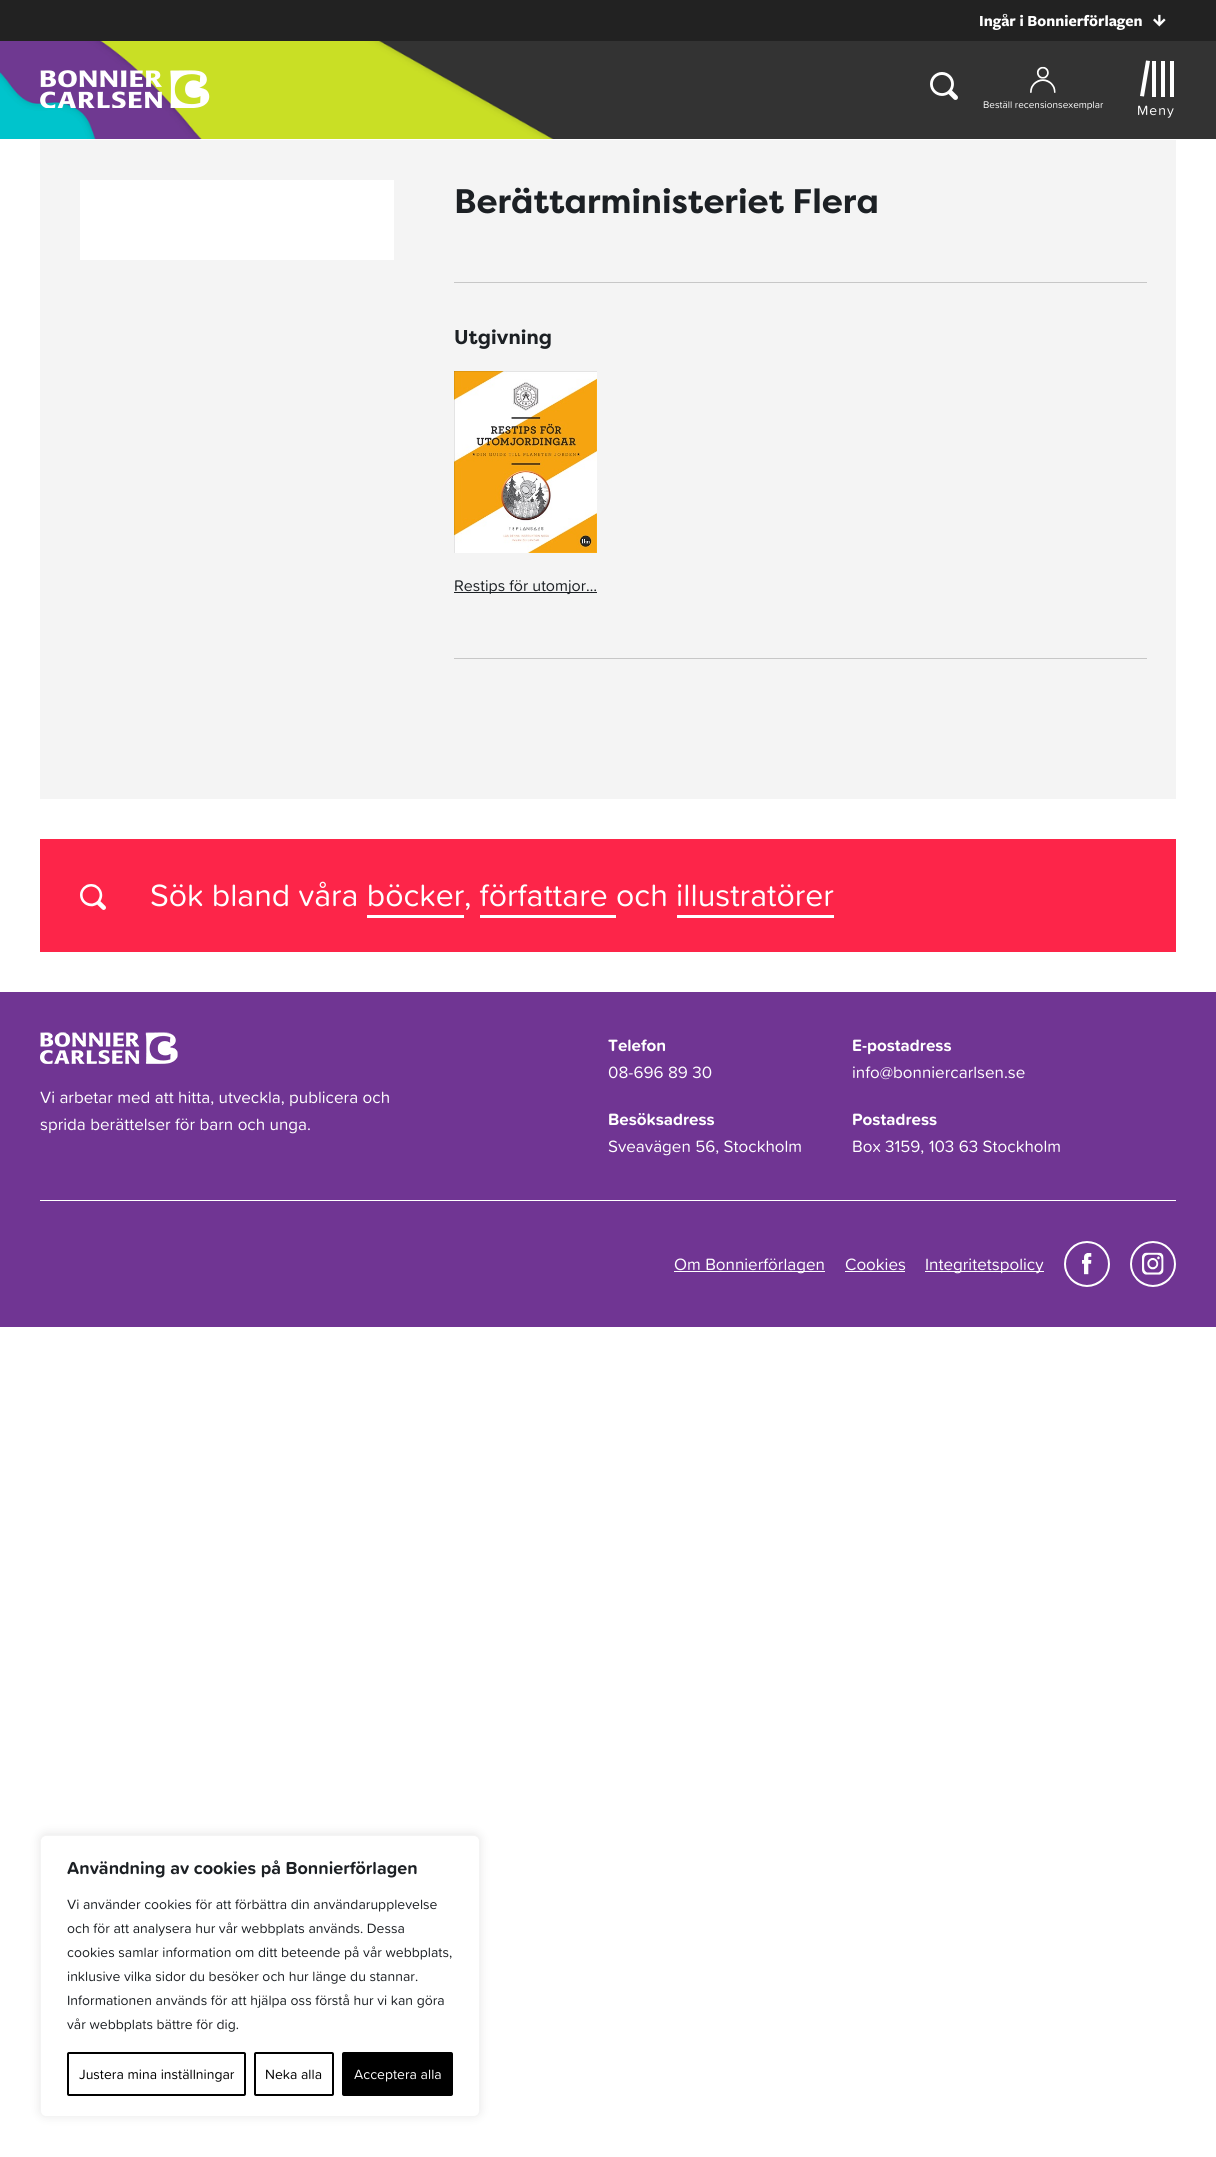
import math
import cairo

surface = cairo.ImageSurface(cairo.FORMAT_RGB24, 1216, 2157)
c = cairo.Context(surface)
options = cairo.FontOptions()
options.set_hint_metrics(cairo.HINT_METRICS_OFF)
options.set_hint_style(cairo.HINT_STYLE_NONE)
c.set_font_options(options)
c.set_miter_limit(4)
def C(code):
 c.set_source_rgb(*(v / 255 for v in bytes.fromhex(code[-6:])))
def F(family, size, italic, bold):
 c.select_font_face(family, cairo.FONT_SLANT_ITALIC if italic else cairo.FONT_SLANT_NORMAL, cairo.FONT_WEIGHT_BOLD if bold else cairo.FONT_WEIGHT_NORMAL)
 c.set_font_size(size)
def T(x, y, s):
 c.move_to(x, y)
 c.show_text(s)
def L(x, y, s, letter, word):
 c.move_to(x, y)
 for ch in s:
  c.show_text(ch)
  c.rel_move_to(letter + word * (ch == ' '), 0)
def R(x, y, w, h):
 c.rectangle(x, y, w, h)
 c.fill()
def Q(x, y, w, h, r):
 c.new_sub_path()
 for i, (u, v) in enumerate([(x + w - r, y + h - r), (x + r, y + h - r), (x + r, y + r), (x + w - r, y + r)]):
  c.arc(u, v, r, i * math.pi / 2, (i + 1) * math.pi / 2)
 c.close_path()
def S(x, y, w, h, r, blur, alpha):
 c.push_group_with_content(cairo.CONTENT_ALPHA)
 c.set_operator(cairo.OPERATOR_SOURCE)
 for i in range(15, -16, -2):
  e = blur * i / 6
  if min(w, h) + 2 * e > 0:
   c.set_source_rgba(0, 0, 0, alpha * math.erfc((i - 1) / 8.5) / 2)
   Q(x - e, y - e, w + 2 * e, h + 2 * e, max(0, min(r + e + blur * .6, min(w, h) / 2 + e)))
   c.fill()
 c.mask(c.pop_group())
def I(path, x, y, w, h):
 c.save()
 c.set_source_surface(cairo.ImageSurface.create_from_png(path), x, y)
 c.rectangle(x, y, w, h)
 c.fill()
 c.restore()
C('ffffff')
c.paint()
C('222222')
R(0,0,1216,41)
F('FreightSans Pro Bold',16,0,1)
C('ffffff')
T(979,26,'Ingår i Bonnierförlagen')
I('1.png',1153,14,13,13)
I('2.png',0,41,1216,98)
I('3.png',40,70,170,38)
I('4.png',930,72,28,28)
I('5.png',1030,66,26,27)
F('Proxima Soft',10,0,0)
T(983,108,'Beställ recensionsexemplar')
c.new_path()
c.move_to(1146,60.5)
c.line_to(1150,61)
c.line_to(1144,96.5)
c.line_to(1140,96)
c.close_path()
c.fill()
R(1152,61,4,36)
R(1161,61,4,36)
R(1170,61,4,36)
F('Proxima Soft',14,0,0)
L(1137,115,'Meny',1,0)
C('f4f4f4')
R(40,140,1136,659)
C('ffffff')
R(80,180,314,80)
C('c7c7c7')
R(454,282,693,1)
F('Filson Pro',34,0,1)
C('1c2024')
T(454,213,'Berättarministeriet Flera')
C('c7c7c7')
R(454,658,693,1)
F('Filson Pro',20,0,1)
C('1c2024')
T(454,344,'Utgivning')
I('6.png',454,371,143,182)
R(454,592,143,1)
F('Proxima Soft',16,0,0)
T(454,591,'Restips för utomjor…')
C('fd2549')
R(40,839,1136,113)
I('7.png',80,884,26,26)
F('Proxima Soft',32,0,0)
C('ffffff')
T(150,906,'Sök bland våra böcker')
T(464,906,', författare')
T(616,906,'och illustratörer')
R(367,915,97,3)
R(480,915,136,3)
R(677,915,157,3)
C('703593')
R(0,992,1216,335)
I('8.png',40,1032,138,32)
F('Proxima Soft',17,0,0)
C('ffffff')
T(40,1103,'Vi arbetar med att hitta, utveckla, publicera och')
T(40,1130,'sprida berättelser för barn och unga.')
F('Proxima Soft',17,0,1)
T(608,1051,'Telefon')
F('Proxima Soft',17,0,0)
T(608,1078,'08-696 89 30')
F('Proxima Soft',17,0,1)
T(852,1051,'E-postadress')
F('Proxima Soft',17,0,0)
T(852,1078,'info@bonniercarlsen.se')
F('Proxima Soft',17,0,1)
T(608,1125,'Besöksadress')
F('Proxima Soft',17,0,0)
T(608,1152,'Sveavägen 56, Stockholm')
F('Proxima Soft',17,0,1)
T(852,1125,'Postadress')
F('Proxima Soft',17,0,0)
T(852,1152,'Box 3159, 103 63 Stockholm')
R(40,1200,1136,1)
R(674,1271,151,1)
T(674,1270,'Om Bonnierförlagen')
T(845,1270,'Cookies')
R(845,1271,60,1)
R(925,1271,119,1)
T(925,1270,'Integritetspolicy')
I('9.png',1064,1241,46,46)
I('10.png',1130,1241,46,46)
C('acabab')
S(40,1834,440,282,6,5,.3)
C('ffffff')
Q(40.5,1835.5,439,281,5.5)
c.fill_preserve()
C('f4f4f4')
c.set_line_width(1)
c.stroke()
F('Proxima Soft',18,0,1)
C('1c2024')
T(67,1874,'Användning av cookies på Bonnierförlagen')
F('Proxima Soft',14,0,0)
T(67,1909,'Vi använder cookies för att förbättra din användarupplevelse')
T(67,1933,'och för att analysera hur vår webbplats används. Dessa')
T(67,1957,'cookies samlar information om ditt beteende på vår webbplats,')
T(67,1981,'inklusive vilka sidor du besöker och hur länge du stannar.')
T(67,2005,'Informationen används för att hjälpa oss förstå hur vi kan göra')
T(67,2029,'vår webbplats bättre för dig.')
Q(68,2053,177,42,1)
C('000000')
c.set_line_width(2)
c.stroke()
T(79,2079,'Justera mina inställningar')
Q(255,2053,78,42,1)
c.stroke()
T(265,2079,'Neka alla')
Q(343,2053,109,42,1)
c.fill_preserve()
c.stroke()
C('ffffff')
T(354,2079,'Acceptera alla')
surface.write_to_png('o.png')
